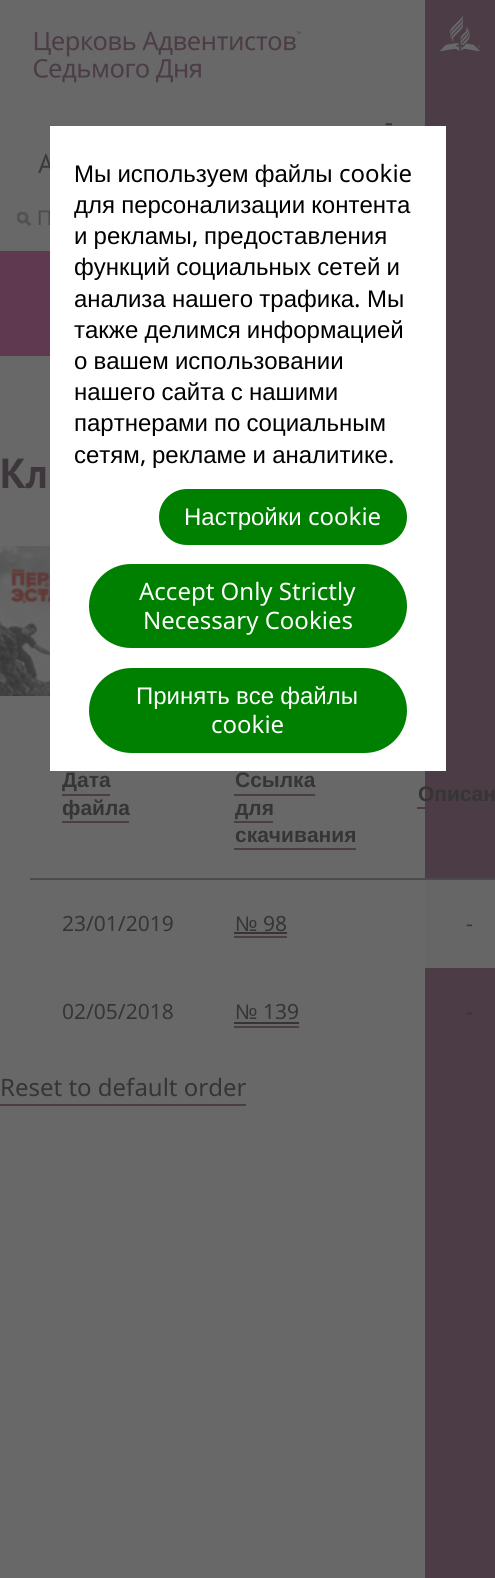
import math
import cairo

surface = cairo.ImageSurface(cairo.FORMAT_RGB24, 495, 1578)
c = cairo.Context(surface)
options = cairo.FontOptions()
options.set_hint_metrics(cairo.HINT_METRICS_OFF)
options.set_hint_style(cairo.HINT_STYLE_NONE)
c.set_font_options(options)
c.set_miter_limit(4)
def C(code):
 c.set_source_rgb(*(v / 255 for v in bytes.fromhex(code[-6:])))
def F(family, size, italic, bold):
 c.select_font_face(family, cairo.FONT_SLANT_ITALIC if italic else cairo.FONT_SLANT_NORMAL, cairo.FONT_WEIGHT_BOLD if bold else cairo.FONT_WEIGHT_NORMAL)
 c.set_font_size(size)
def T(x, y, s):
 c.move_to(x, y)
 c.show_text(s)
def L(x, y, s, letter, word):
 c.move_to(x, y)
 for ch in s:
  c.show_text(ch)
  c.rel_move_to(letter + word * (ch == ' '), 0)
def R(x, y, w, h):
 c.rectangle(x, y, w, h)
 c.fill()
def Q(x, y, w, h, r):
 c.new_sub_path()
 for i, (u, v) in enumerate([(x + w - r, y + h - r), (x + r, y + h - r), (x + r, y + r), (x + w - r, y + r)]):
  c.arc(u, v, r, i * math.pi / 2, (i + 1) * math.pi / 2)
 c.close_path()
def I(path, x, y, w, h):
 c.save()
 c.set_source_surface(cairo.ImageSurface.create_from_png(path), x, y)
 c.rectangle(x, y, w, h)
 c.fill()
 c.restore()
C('686868')
c.paint()
C('4b3c45')
R(425,0,70,1578)
I('1.png',440,15,40,36)
I('2.png',34,31,267,52)
F('PT Sans',27,0,0)
C('3d373c')
T(384,132,'-')
T(38,173,'А')
I('3.png',17,212,15,15)
F('Liberation Sans',21,0,0)
C('4b4b4b')
L(37,225,'П',1,0)
C('5f394f')
R(0,251,50,105)
F('PT Sans',42,0,1)
C('3d373c')
T(0,488,'Кл')
I('4.png',0,546,50,150)
F('Liberation Sans',21,0,1)
C('353535')
T(62,787,'Дата')
C('4b3c45')
R(62,794,48,2)
C('353535')
T(62,815,'файла')
C('4b3c45')
R(62,821,67,2)
C('353535')
T(235,787,'Ссылка')
C('4b3c45')
R(234,794,81,2)
C('353535')
T(235,815,'для')
C('4b3c45')
R(234,821,39,2)
C('353535')
T(235,842,'скачивания')
C('4b3c45')
R(234,848,122,2)
C('4b4b4b')
R(30,878,465,2)
C('353535')
T(418,801,'Описан')
C('4b3c45')
R(417,807,8,2)
C('666666')
R(425,880,70,88)
F('Noto Sans',21,0,0)
C('353535')
T(62,931,'23/01/2019')
F('Liberation Sans',21,0,0)
T(235,931,'№')
C('4b3c45')
R(234,936,53,2)
C('353535')
R(234,932,53,2)
F('Noto Sans',21,0,0)
T(263,931,'98')
T(466,931,'-')
T(62,1019,'02/05/2018')
F('Liberation Sans',21,0,0)
T(235,1019,'№')
C('4b3c45')
R(234,1026,65,2)
C('353535')
R(234,1022,65,2)
F('Noto Sans',21,0,0)
T(263,1019,'139')
T(466,1019,'-')
F('Noto Sans',24,0,0)
T(0,1096,'Reset to default order')
C('4b3c45')
R(0,1104,246,2)
C('ffffff')
R(50,126,396,645)
F('Liberation Sans',24,0,0)
C('000000')
L(74,182,'Мы используем файлы',0,-.5)
F('Noto Sans',24,0,0)
T(339,182,'cookie')
F('Liberation Sans',24,0,0)
L(74,213,'для персонализации контента',0,-.5)
L(74,244,'и рекламы',0,-.5)
F('Noto Sans',24,0,0)
T(192,244,',')
F('Liberation Sans',24,0,0)
T(204,244,'предоставления')
L(74,275,'функций социальных сетей и',0,-.5)
L(74,307,'анализа нашего трафика',0,-.5)
F('Noto Sans',24,0,0)
T(354,307,'.')
F('Liberation Sans',24,0,0)
T(367,307,'Мы')
L(74,338,'также делимся информацией',0,-.5)
L(74,369,'о вашем использовании',0,-.5)
L(74,400,'нашего сайта с нашими',0,-.5)
L(74,431,'партнерами по социальным',0,-.5)
T(74,463,'сетям')
F('Noto Sans',24,0,0)
T(140,463,',')
F('Liberation Sans',24,0,0)
L(152,463,'рекламе и аналитике',0,-.5)
F('Noto Sans',24,0,0)
T(388,463,'.')
C('008000')
Q(160,490,246,54,27)
c.fill_preserve()
c.stroke()
F('Liberation Sans',24,0,0)
C('ffffff')
T(184,525,'Настройки')
F('Noto Sans',24,0,0)
T(308,525,'cookie')
C('008000')
Q(90,565,316,82,41)
c.fill_preserve()
c.stroke()
C('ffffff')
T(139,600,'Accept Only Strictly')
T(143,629,'Necessary Cookies')
C('008000')
Q(90,669,316,83,41.5)
c.fill_preserve()
c.stroke()
F('Liberation Sans',24,0,0)
C('ffffff')
L(136,704,'Принять все файлы',0,-.5)
F('Noto Sans',24,0,0)
T(211,733,'cookie')
surface.write_to_png('o.png')
